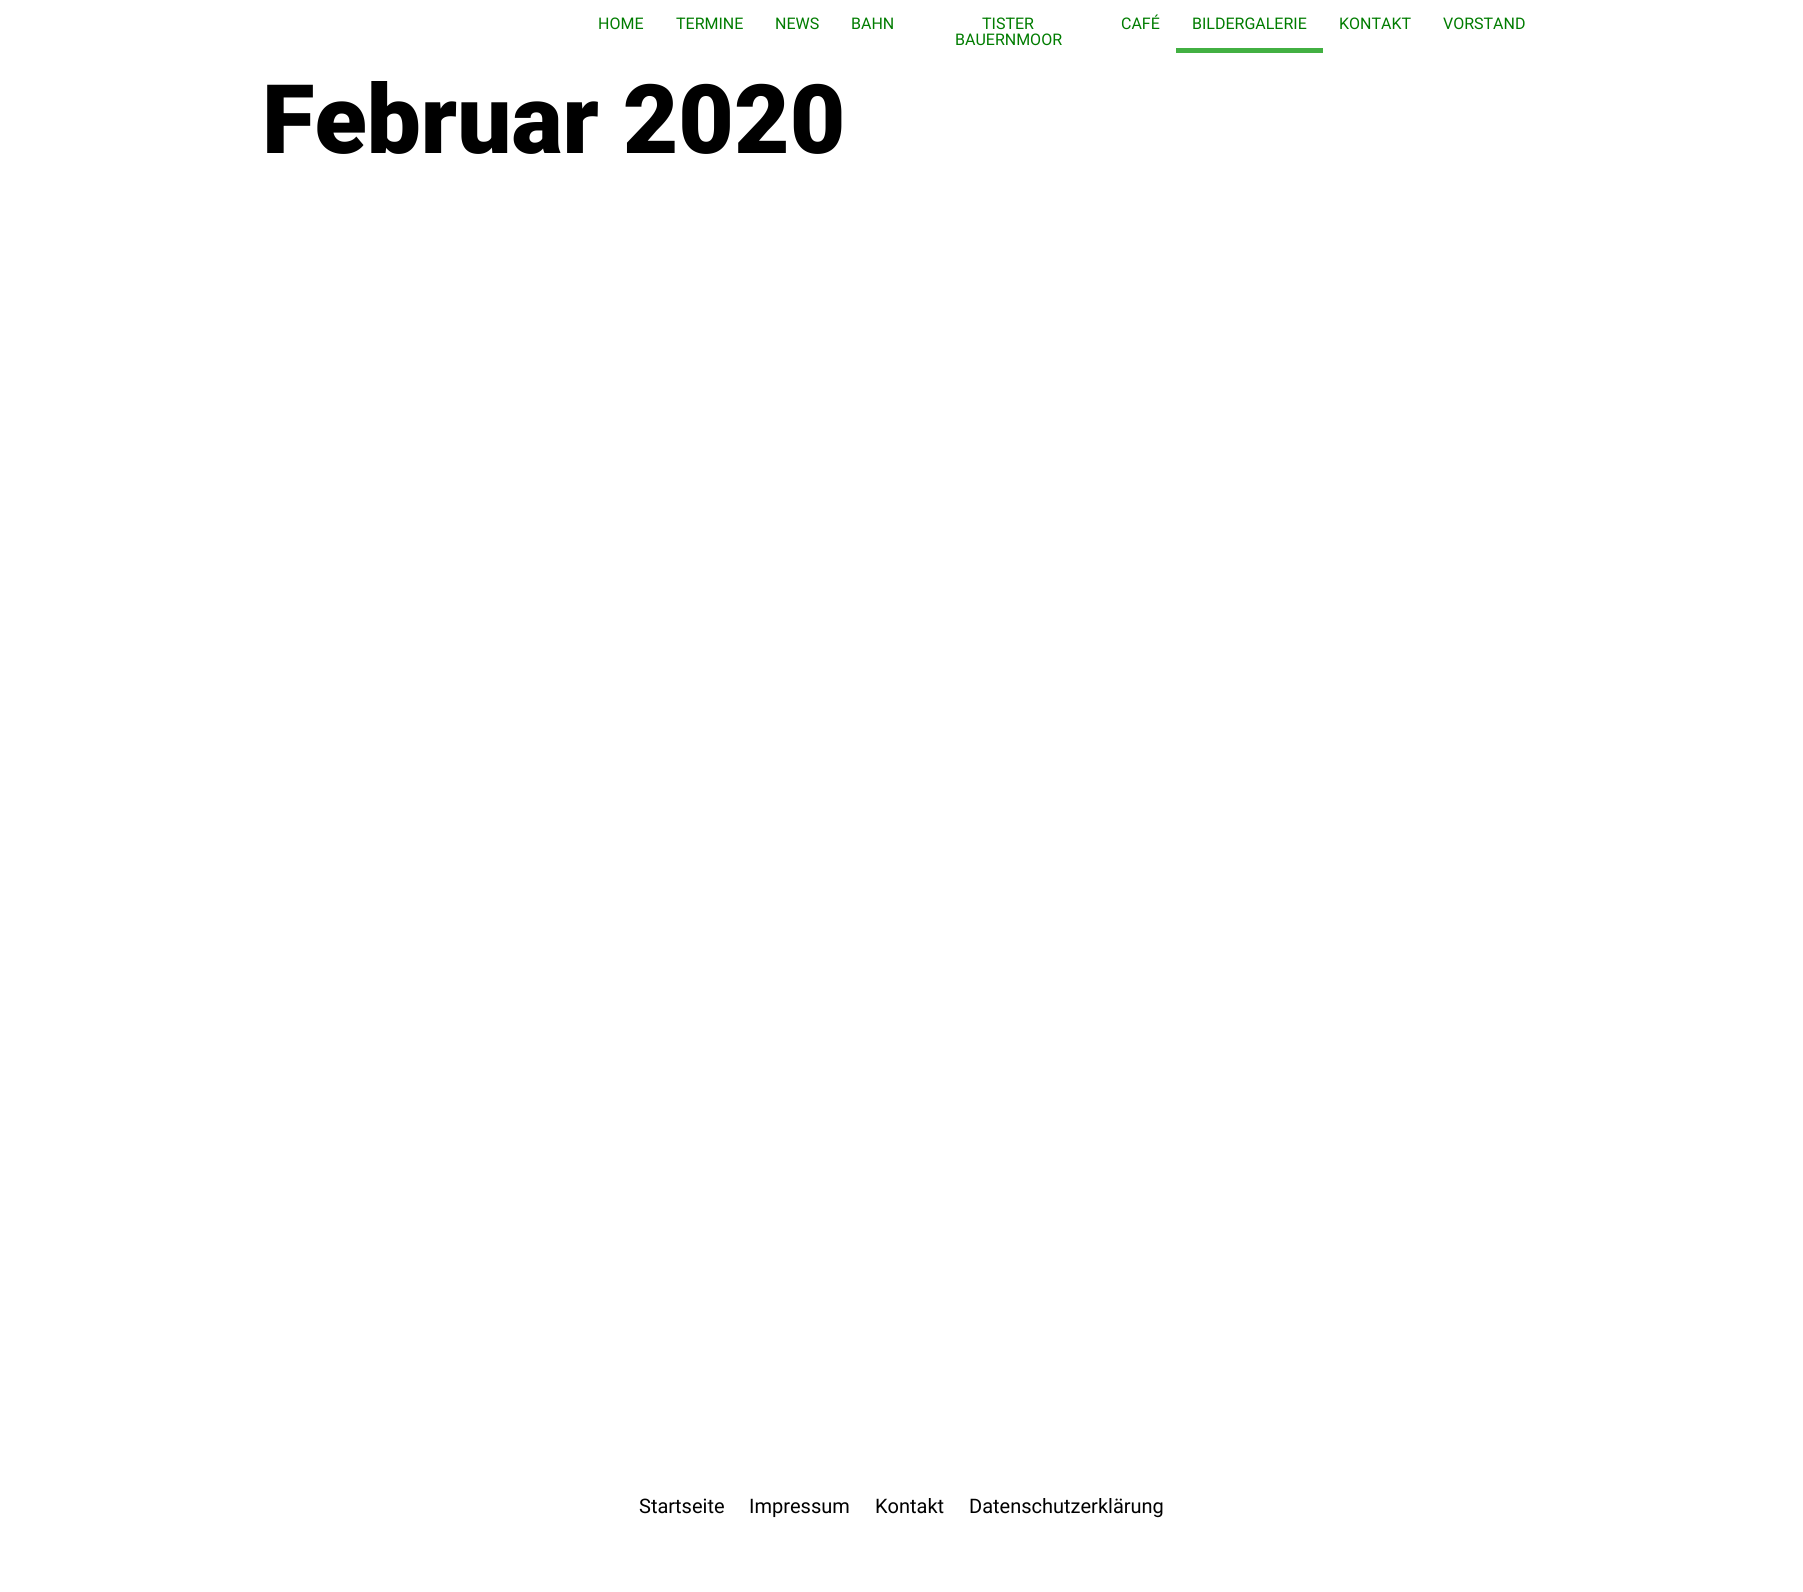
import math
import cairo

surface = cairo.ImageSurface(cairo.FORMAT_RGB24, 1803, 1592)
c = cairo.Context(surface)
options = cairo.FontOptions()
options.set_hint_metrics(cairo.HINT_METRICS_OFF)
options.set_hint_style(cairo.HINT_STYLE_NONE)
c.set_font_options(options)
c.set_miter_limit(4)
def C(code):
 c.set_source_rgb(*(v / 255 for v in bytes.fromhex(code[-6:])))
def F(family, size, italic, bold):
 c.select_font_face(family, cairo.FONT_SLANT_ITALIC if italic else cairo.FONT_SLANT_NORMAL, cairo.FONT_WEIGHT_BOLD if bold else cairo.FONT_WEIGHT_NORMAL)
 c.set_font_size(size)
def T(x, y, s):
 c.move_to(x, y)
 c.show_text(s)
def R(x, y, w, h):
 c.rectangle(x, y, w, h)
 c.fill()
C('ffffff')
c.paint()
F('Roboto',16,0,0)
C('007c00')
T(598,29,'HOME')
T(676,29,'TERMINE')
T(775,29,'NEWS')
T(851,29,'BAHN')
T(982,29,'TISTER')
T(955,45,'BAUERNMOOR')
T(1121,29,'CAFÉ')
C('42b042')
R(1176,48,147,5)
C('007c00')
T(1192,29,'BILDERGALERIE')
T(1339,29,'KONTAKT')
T(1443,29,'VORSTAND')
F('Roboto Black',96,0,0)
C('000000')
T(262,153,'Februar 2020')
F('Roboto',20,0,0)
T(639,1513,'Startseite')
T(749,1513,'Impressum')
T(875,1513,'Kontakt')
T(969,1513,'Datenschutzerklärung')
surface.write_to_png('o.png')
